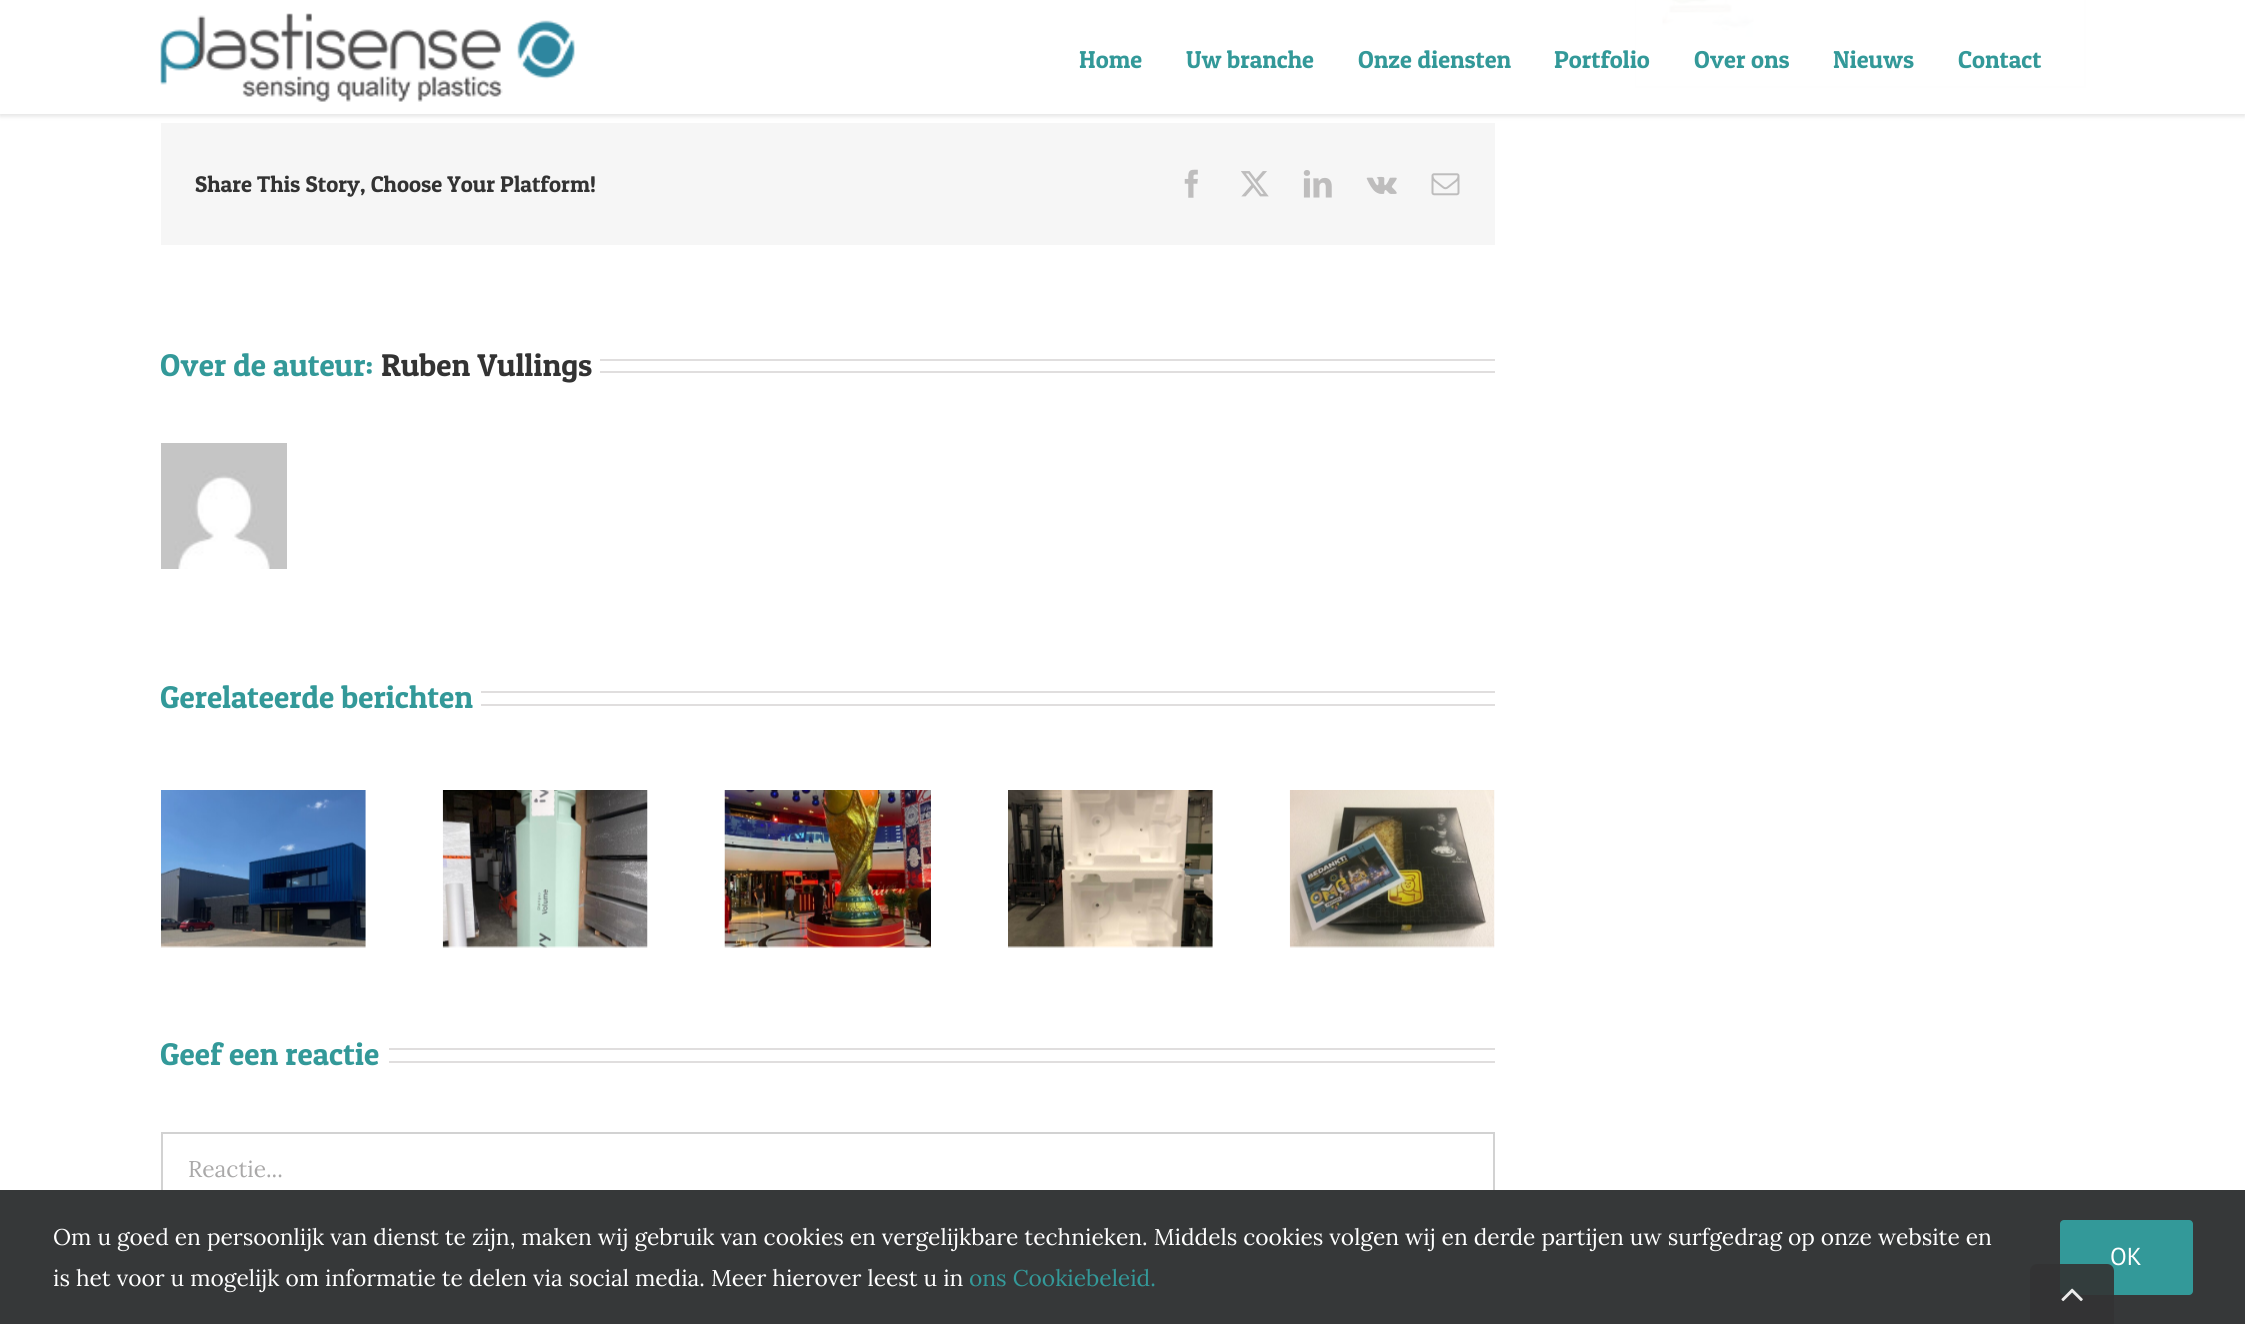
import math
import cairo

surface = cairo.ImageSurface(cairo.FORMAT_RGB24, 2245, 1324)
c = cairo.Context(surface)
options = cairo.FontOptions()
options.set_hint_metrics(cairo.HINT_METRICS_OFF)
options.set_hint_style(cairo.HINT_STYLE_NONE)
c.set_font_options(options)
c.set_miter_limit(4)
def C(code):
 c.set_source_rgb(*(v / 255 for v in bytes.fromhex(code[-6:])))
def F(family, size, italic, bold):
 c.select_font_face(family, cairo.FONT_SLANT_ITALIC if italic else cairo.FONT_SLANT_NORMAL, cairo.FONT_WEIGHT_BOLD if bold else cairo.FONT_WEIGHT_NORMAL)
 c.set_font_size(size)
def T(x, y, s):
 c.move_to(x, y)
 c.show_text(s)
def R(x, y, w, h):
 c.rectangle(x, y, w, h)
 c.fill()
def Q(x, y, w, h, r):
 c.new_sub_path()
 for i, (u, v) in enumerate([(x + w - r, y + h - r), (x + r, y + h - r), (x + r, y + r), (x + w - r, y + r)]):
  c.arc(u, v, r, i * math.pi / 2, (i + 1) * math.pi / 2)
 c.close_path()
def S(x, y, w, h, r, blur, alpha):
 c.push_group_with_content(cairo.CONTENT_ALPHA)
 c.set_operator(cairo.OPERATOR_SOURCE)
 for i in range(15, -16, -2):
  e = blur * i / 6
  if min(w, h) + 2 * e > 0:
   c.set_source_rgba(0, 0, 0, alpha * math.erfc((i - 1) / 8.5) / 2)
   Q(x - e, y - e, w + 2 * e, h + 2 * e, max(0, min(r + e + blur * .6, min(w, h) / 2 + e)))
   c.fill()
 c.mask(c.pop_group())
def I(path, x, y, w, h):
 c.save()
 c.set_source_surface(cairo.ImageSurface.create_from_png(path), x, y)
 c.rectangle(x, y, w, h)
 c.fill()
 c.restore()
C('ffffff')
c.paint()
c.rectangle(1636,-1,449,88)
C('ebeaea')
c.stroke()
C('ffffff')
R(1636,0,1,86)
I('2.png',1662,0,92,37)
C('f6f6f6')
R(161,123,1334,122)
c.save()
c.set_fill_rule(cairo.FILL_RULE_EVEN_ODD)
c.new_path()
c.move_to(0,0)
c.line_to(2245,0)
c.line_to(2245,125)
c.line_to(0,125)
c.close_path()
c.move_to(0,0)
c.line_to(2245,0)
c.line_to(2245,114)
c.line_to(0,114)
c.close_path()
c.clip()
C('000000')
S(0,2,2245,114,0,2.5,.12)
c.restore()
c.set_source_rgba(1,1,1,0.97)
R(0,0,2245,114)
I('1.png',160,13,415,89)
F('Patua One',24.5,0,0)
C('339999')
T(1079,68,'Home')
T(1186,68,'Uw branche')
T(1358,68,'Onze diensten')
T(1554,68,'Portfolio')
T(1694,68,'Over ons')
T(1833,68,'Nieuws')
T(1958,68,'Contact')
F('Patua One',22.75,0,0)
C('333333')
T(195,192,'Share This Story, Choose Your Platform!')
I('3.png',1184,169,14,29)
I('4.png',1241,171,28,26)
I('5.png',1303,170,29,28)
I('6.png',1366,176,31,18)
I('7.png',1431,173,29,23)
F('Patua One',31.5,0,0)
C('339999')
T(160,376,'Over de auteur:')
C('333333')
T(381,376,'Ruben Vullings')
C('e0dede')
R(600,359,895,2)
R(600,371,895,2)
I('8.png',161,443,126,126)
C('339999')
T(160,708,'Gerelateerde berichten')
C('e0dede')
R(481,691,1014,2)
R(481,704,1014,2)
I('9.png',161,790,205,158)
I('10.png',442,790,206,158)
I('11.png',724,790,207,158)
I('12.png',1008,790,205,158)
I('13.png',1289,790,206,158)
C('339999')
T(160,1065,'Geef een reactie')
C('e0dede')
R(389,1048,1106,2)
R(389,1061,1106,2)
c.rectangle(162,1133,1332,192)
C('d2d2d2')
c.stroke()
F('Lora',22.75,0,0)
C('aaa9a9')
T(188,1177,'Reactie...')
C('363839')
R(0,1190,2245,134)
C('ffffff')
T(53,1245,'Om u goed en persoonlijk van dienst te zijn, maken wij gebruik van cookies en vergelijkbare technieken. Middels cookies volgen wij en derde partijen uw surfgedrag op onze website en')
T(53,1286,'is het voor u mogelijk om informatie te delen via social media. Meer hierover leest u in')
C('339999')
T(969,1286,'ons Cookiebeleid.')
Q(2060,1220,133,75,4)
c.fill()
F('PT Sans',24.5,0,0)
C('ffffff')
T(2110,1265,'OK')
c.set_source_rgba(0.2,0.2,0.2,0.9)
c.new_path()
c.move_to(2037,1264)
c.line_to(2107,1264)
c.curve_to(2111,1264,2114,1267,2114,1271)
c.line_to(2114,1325)
c.line_to(2030,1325)
c.line_to(2030,1271)
c.curve_to(2030,1267,2033,1264,2037,1264)
c.close_path()
c.fill()
I('14.png',2061,1288,22,14)
surface.write_to_png('o.png')
